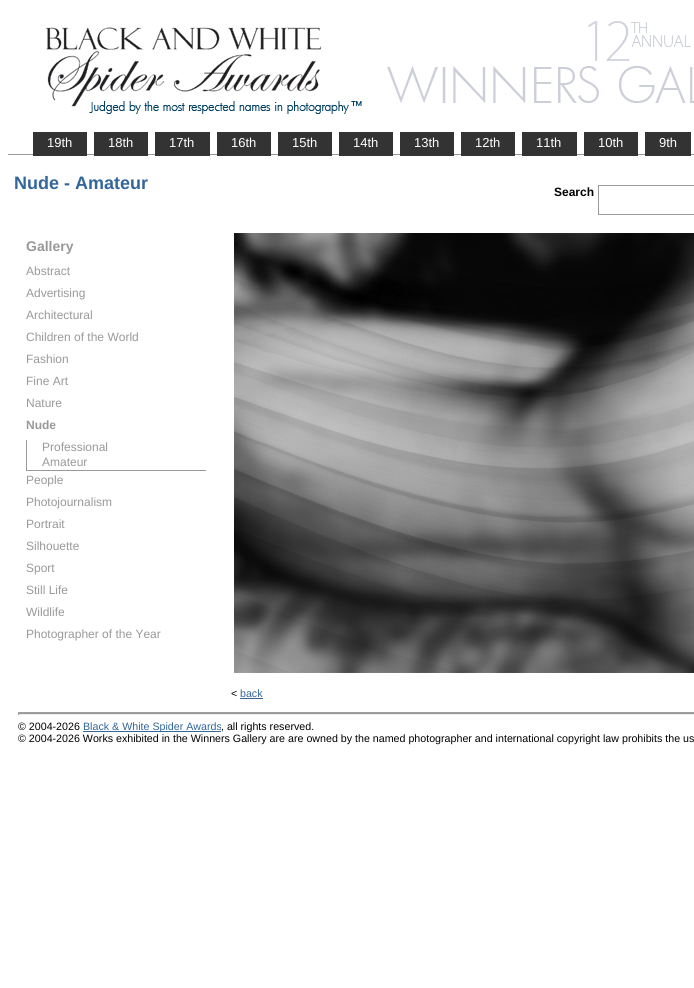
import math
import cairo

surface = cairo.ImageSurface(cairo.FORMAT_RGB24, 694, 988)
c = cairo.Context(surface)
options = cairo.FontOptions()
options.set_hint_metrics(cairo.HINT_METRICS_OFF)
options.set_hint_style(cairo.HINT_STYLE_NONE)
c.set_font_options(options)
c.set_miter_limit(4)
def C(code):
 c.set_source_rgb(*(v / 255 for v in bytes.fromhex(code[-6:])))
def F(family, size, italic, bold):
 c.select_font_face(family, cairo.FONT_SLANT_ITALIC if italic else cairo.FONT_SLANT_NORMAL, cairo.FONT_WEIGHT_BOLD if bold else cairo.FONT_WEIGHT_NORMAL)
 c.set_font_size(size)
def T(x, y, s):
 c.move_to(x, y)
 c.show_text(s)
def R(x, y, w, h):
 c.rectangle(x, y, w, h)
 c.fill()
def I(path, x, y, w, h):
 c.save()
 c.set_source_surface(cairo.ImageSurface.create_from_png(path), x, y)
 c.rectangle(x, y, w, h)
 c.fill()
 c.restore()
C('ffffff')
c.paint()
I('1.png',45,21,649,95)
C('999999')
R(8,154,686,1)
C('333333')
R(33,132,54,24)
F('Liberation Sans',13,0,0)
C('ffffff')
T(47,147,'19th')
C('333333')
R(94,132,54,24)
C('ffffff')
T(108,147,'18th')
C('333333')
R(155,132,55,24)
C('ffffff')
T(169,147,'17th')
C('333333')
R(217,132,54,24)
C('ffffff')
T(231,147,'16th')
C('333333')
R(278,132,54,24)
C('ffffff')
T(292,147,'15th')
C('333333')
R(339,132,54,24)
C('ffffff')
T(353,147,'14th')
C('333333')
R(400,132,54,24)
C('ffffff')
T(414,147,'13th')
C('333333')
R(461,132,54,24)
C('ffffff')
T(475,147,'12th')
C('333333')
R(522,132,55,24)
C('ffffff')
T(536,147,'11th')
C('333333')
R(584,132,54,24)
C('ffffff')
T(598,147,'10th')
C('333333')
R(645,132,46,24)
C('ffffff')
T(659,147,'9th')
F('Liberation Sans',18,0,1)
C('336699')
T(14,189,'Nude - Amateur')
F('Liberation Sans',12,0,1)
C('000000')
T(554,196,'Search')
c.rectangle(598.5,185.5,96,29)
C('999999')
c.set_line_width(1)
c.stroke()
F('Liberation Sans',14,0,1)
T(26,251,'Gallery')
F('Liberation Sans',12,0,0)
T(26,275,'Abstract')
T(26,297,'Advertising')
T(26,319,'Architectural')
T(26,341,'Children of the World')
T(26,363,'Fashion')
T(26,385,'Fine Art')
T(26,407,'Nature')
F('Liberation Sans',12,0,1)
T(26,429,'Nude')
R(26,470,180,1)
R(26,440,1,31)
F('Liberation Sans',12,0,0)
T(42,451,'Professional')
T(42,466,'Amateur')
T(26,484,'People')
T(26,506,'Photojournalism')
T(26,528,'Portrait')
T(26,550,'Silhouette')
T(26,572,'Sport')
T(26,594,'Still Life')
T(26,616,'Wildlife')
T(26,638,'Photographer of the Year')
I('2.png',234,233,460,440)
F('Liberation Sans',10.67,0,0)
C('000000')
T(231,697,'<')
C('336699')
T(240,697,'back')
R(240,698,23,1)
C('999999')
R(18,713,676,1)
C('9f9f9f')
R(18,712,676,1)
C('eeeeee')
R(18,714,676,1)
C('9f9f9f')
R(18,712,1,3)
C('000000')
T(18,730,'© 2004-2026')
C('336699')
R(83,731,138,1)
T(83,730,'Black & White Spider Awards')
C('000000')
T(221,730,', all rights reserved.')
T(18,742,'© 2004-2026 Works exhibited in the Winners Gallery are are owned by the named photographer and international copyright law prohibits the us')
surface.write_to_png('o.png')
